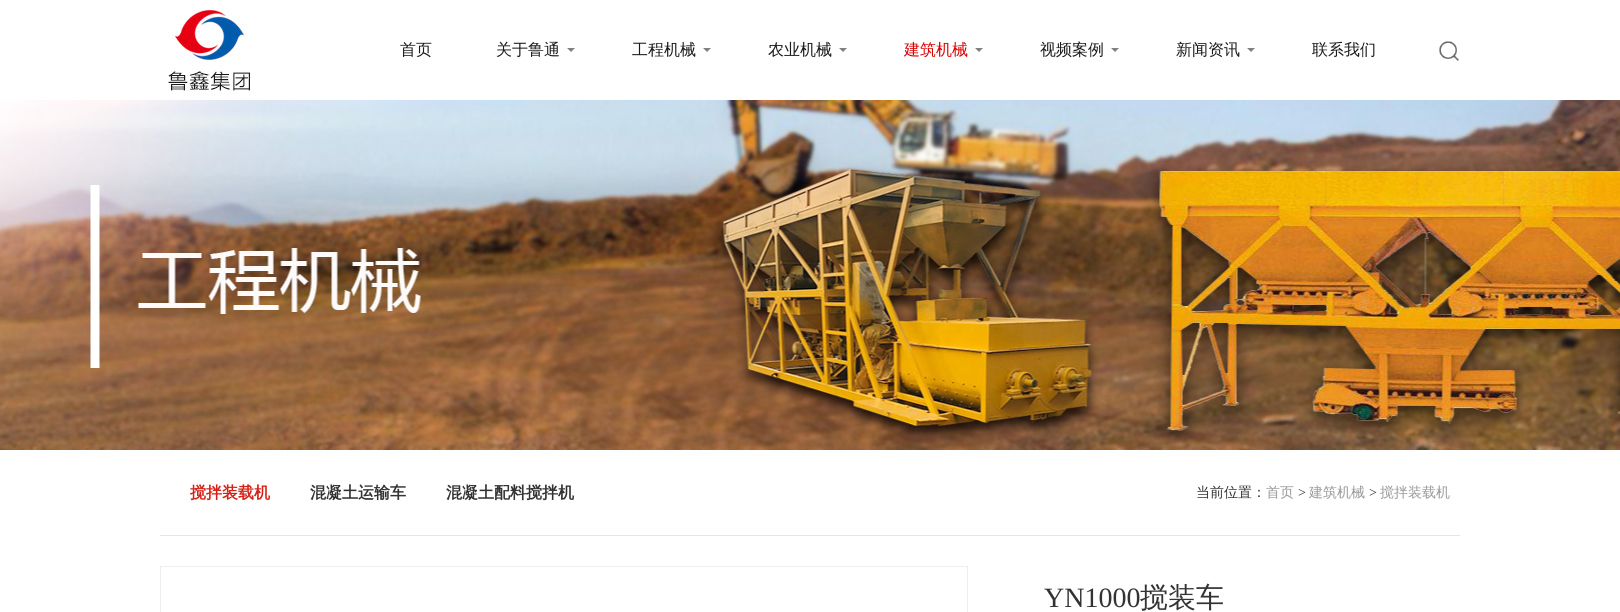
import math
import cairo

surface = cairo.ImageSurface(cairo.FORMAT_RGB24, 1620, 612)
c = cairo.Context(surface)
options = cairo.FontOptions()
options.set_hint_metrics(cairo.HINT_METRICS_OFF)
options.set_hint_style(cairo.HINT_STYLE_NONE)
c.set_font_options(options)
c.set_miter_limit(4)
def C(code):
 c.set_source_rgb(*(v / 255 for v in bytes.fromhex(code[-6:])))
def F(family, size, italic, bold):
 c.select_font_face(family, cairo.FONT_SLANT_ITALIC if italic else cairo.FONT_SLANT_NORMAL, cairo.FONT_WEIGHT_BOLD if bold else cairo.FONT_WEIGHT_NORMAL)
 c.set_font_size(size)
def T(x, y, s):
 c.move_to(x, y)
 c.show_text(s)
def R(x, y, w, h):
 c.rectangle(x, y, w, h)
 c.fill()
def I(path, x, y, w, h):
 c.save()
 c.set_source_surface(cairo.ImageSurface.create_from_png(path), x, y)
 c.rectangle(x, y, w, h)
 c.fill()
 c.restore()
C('ffffff')
c.paint()
I('1.png',168,8,86,87)
F('WenQuanYi Zen Hei Medium',16,0,0)
C('1a1a1a')
T(400,55,'首页')
T(496,55,'关于鲁通')
C('808080')
c.new_path()
c.move_to(567,48)
c.line_to(575,48)
c.line_to(571,52)
c.close_path()
c.fill()
C('1a1a1a')
T(632,55,'工程机械')
C('808080')
c.new_path()
c.move_to(703,48)
c.line_to(711,48)
c.line_to(707,52)
c.close_path()
c.fill()
C('1a1a1a')
T(768,55,'农业机械')
C('808080')
c.new_path()
c.move_to(839,48)
c.line_to(847,48)
c.line_to(843,52)
c.close_path()
c.fill()
C('dc0000')
T(904,55,'建筑机械')
C('808080')
c.new_path()
c.move_to(975,48)
c.line_to(983,48)
c.line_to(979,52)
c.close_path()
c.fill()
C('1a1a1a')
T(1040,55,'视频案例')
C('808080')
c.new_path()
c.move_to(1111,48)
c.line_to(1119,48)
c.line_to(1115,52)
c.close_path()
c.fill()
C('1a1a1a')
T(1176,55,'新闻资讯')
C('808080')
c.new_path()
c.move_to(1247,48)
c.line_to(1255,48)
c.line_to(1251,52)
c.close_path()
c.fill()
C('1a1a1a')
T(1312,55,'联系我们')
I('2.png',1439,41,20,20)
I('3.png',0,100,1620,350)
C('e5e5e5')
R(160,535,1300,1)
F('WenQuanYi Zen Hei',16,0,1)
C('d52218')
T(190,498,'搅拌装载机')
C('333333')
T(310,498,'混凝土运输车')
T(446,498,'混凝土配料搅拌机')
F('WenQuanYi Zen Hei Medium',14,0,0)
T(1196,497,'当前位置：')
C('999999')
T(1266,497,'首页')
F('Liberation Serif',14,0,0)
C('333333')
T(1298,497,'>')
F('WenQuanYi Zen Hei Medium',14,0,0)
C('999999')
T(1309,497,'建筑机械')
F('Liberation Serif',14,0,0)
C('333333')
T(1369,497,'>')
F('WenQuanYi Zen Hei Medium',14,0,0)
C('999999')
T(1380,497,'搅拌装载机')
c.rectangle(160.5,566.5,807,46)
C('eeeeee')
c.set_line_width(1)
c.stroke()
F('Liberation Serif',28,0,0)
C('333333')
T(1044,607,'YN1000')
F('WenQuanYi Zen Hei Medium',28,0,0)
T(1140,607,'搅装车')
surface.write_to_png('o.png')
